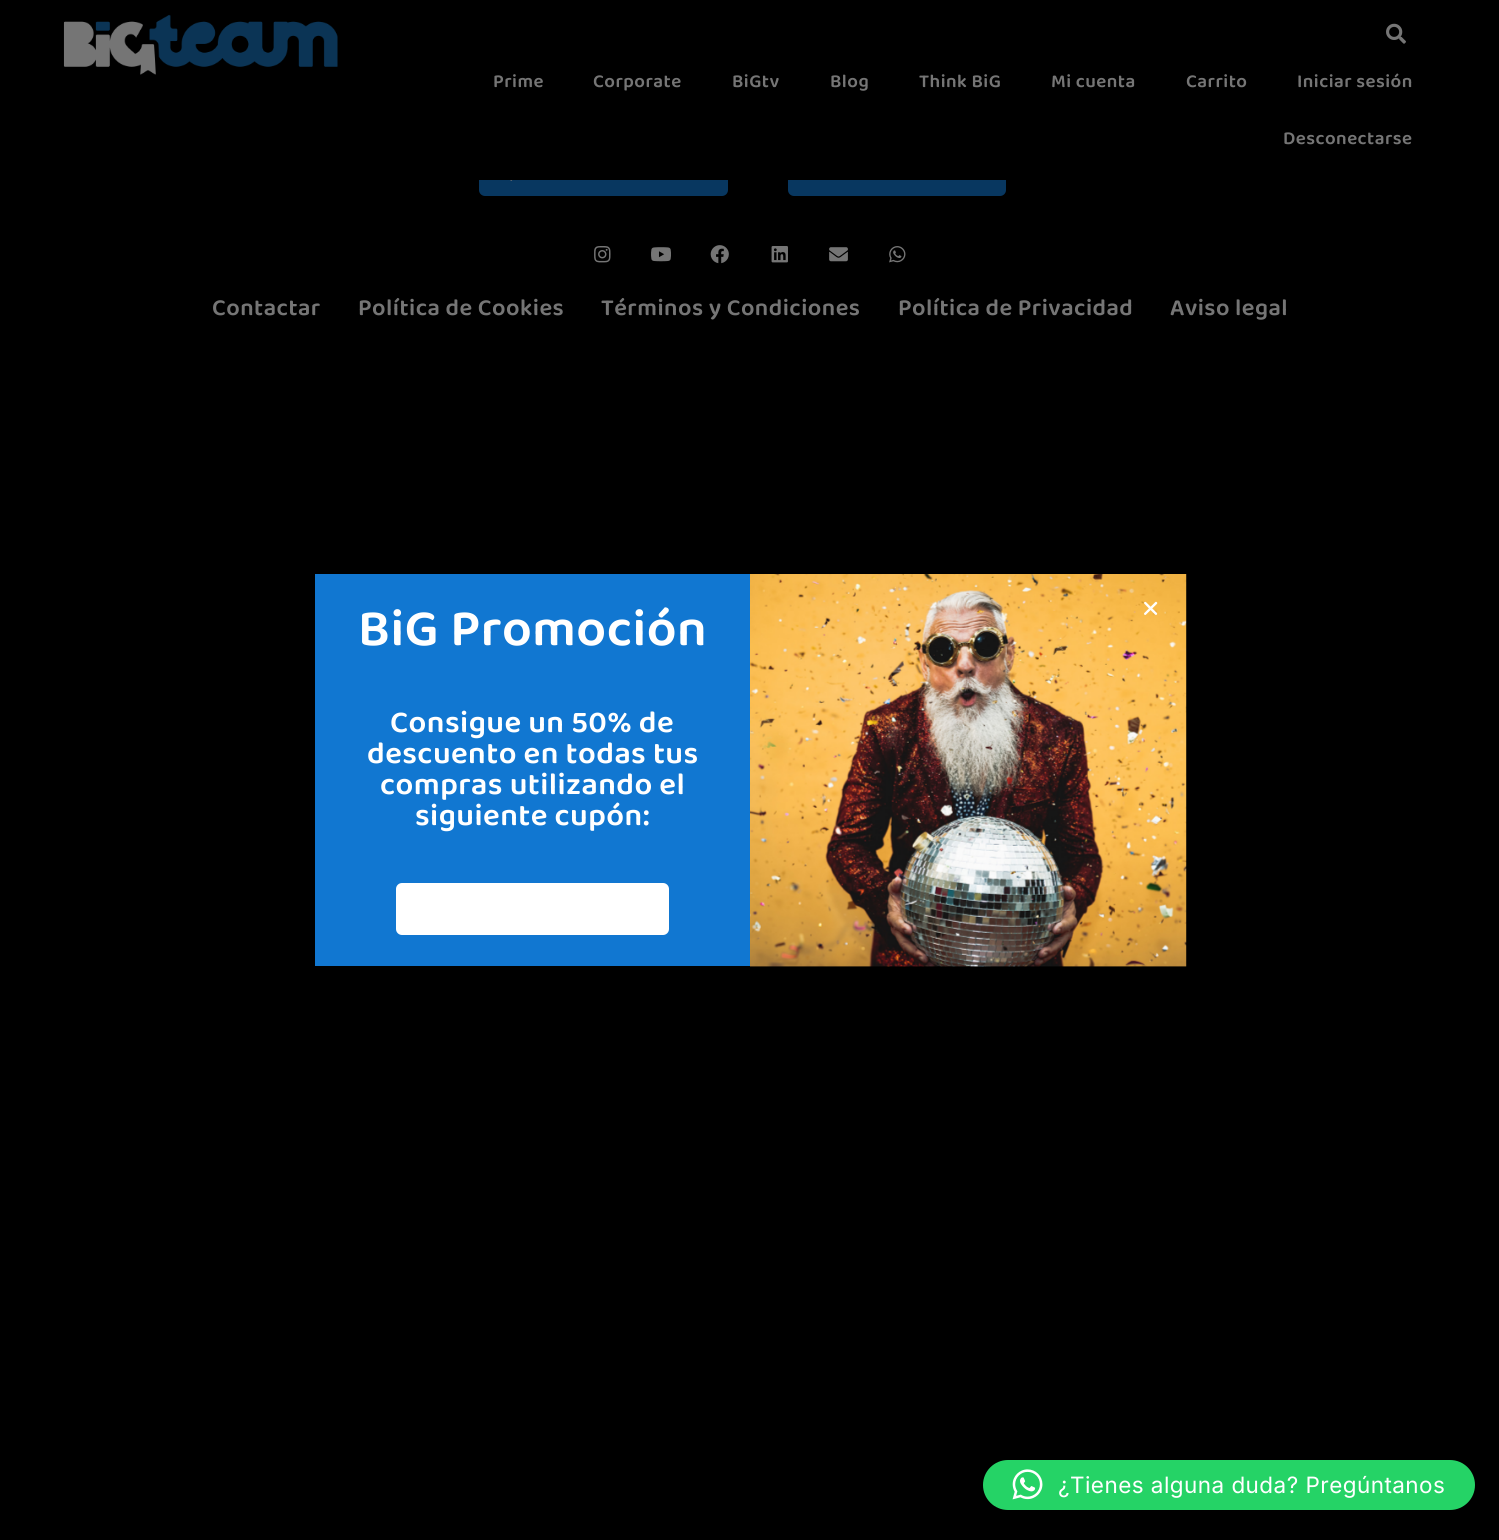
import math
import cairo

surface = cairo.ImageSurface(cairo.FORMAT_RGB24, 1499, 1540)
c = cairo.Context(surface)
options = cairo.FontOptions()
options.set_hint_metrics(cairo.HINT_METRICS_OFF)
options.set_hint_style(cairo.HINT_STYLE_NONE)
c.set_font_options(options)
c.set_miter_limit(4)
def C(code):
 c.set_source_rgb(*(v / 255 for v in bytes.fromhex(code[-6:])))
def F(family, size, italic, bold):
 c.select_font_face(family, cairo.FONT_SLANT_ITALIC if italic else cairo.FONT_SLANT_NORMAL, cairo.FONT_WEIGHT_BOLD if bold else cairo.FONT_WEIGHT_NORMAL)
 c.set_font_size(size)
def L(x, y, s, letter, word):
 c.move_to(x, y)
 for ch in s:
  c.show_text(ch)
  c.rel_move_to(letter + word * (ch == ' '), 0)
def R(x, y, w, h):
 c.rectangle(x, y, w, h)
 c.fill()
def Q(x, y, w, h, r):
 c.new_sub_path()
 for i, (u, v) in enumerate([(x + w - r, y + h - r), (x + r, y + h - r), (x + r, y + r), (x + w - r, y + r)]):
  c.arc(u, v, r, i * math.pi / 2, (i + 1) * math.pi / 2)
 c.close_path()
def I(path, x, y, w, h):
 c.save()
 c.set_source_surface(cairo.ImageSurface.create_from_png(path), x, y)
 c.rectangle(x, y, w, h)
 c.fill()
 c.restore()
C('000000')
c.paint()
C('083760')
Q(479,139,249,57,6)
c.fill()
Q(788,139,218,57,6)
c.fill()
C('000000')
R(479,139,527,41)
I('1.png',63,14,275,61)
I('2.png',1386,23,20,21)
F('Baloo 2 SemiBold',18.75,0,0)
C('757575')
L(493,87,'Prime',.45,0)
L(593,87,'Corporate',.45,0)
L(732,87,'BiGtv',.45,0)
L(830,87,'Blog',.45,0)
L(919,87,'Think BiG',.45,0)
L(1051,87,'Mi cuenta',.45,0)
L(1186,87,'Carrito',.45,0)
L(1297,87,'Iniciar sesión',.45,0)
L(1283,144,'Desconectarse',.45,0)
I('3.png',510,180,3,1)
I('4.png',594,246,17,17)
I('5.png',651,247,20,15)
I('6.png',710,245,19,19)
I('7.png',771,246,17,17)
I('8.png',829,247,19,15)
I('9.png',889,246,17,17)
F('Baloo 2 SemiBold',23.75,0,0)
L(212,315,'Contactar',.45,0)
L(358,315,'Política de Cookies',.45,0)
L(601,315,'Términos y Condiciones',.45,0)
L(898,315,'Política de Privacidad',.45,0)
L(1170,315,'Aviso legal',.45,0)
C('1177d1')
R(315,574,435,392)
F('Baloo 2 SemiBold',52.5,0,0)
C('ffffff')
L(358,645,'BiG Promoción',.45,0)
F('Baloo 2 SemiBold',31.25,0,0)
L(390,732,'Consigue un 50% de',.45,0)
L(367,763,'descuento en todas tus',.45,0)
L(380,794,'compras utilizando el',.45,0)
L(415,825,'siguiente cupón:',.45,0)
Q(396,883,273,52,6)
c.fill()
I('10.png',750,574,437,393)
I('11.png',1144,601,14,14)
C('25d366')
Q(983,1460,492,50,25)
c.fill()
I('12.png',1012,1469,31,31)
F('Inter',22.5,0,0)
C('ffffff')
L(1058,1493,'¿Tienes alguna duda? Pregúntanos',.45,0)
surface.write_to_png('o.png')
